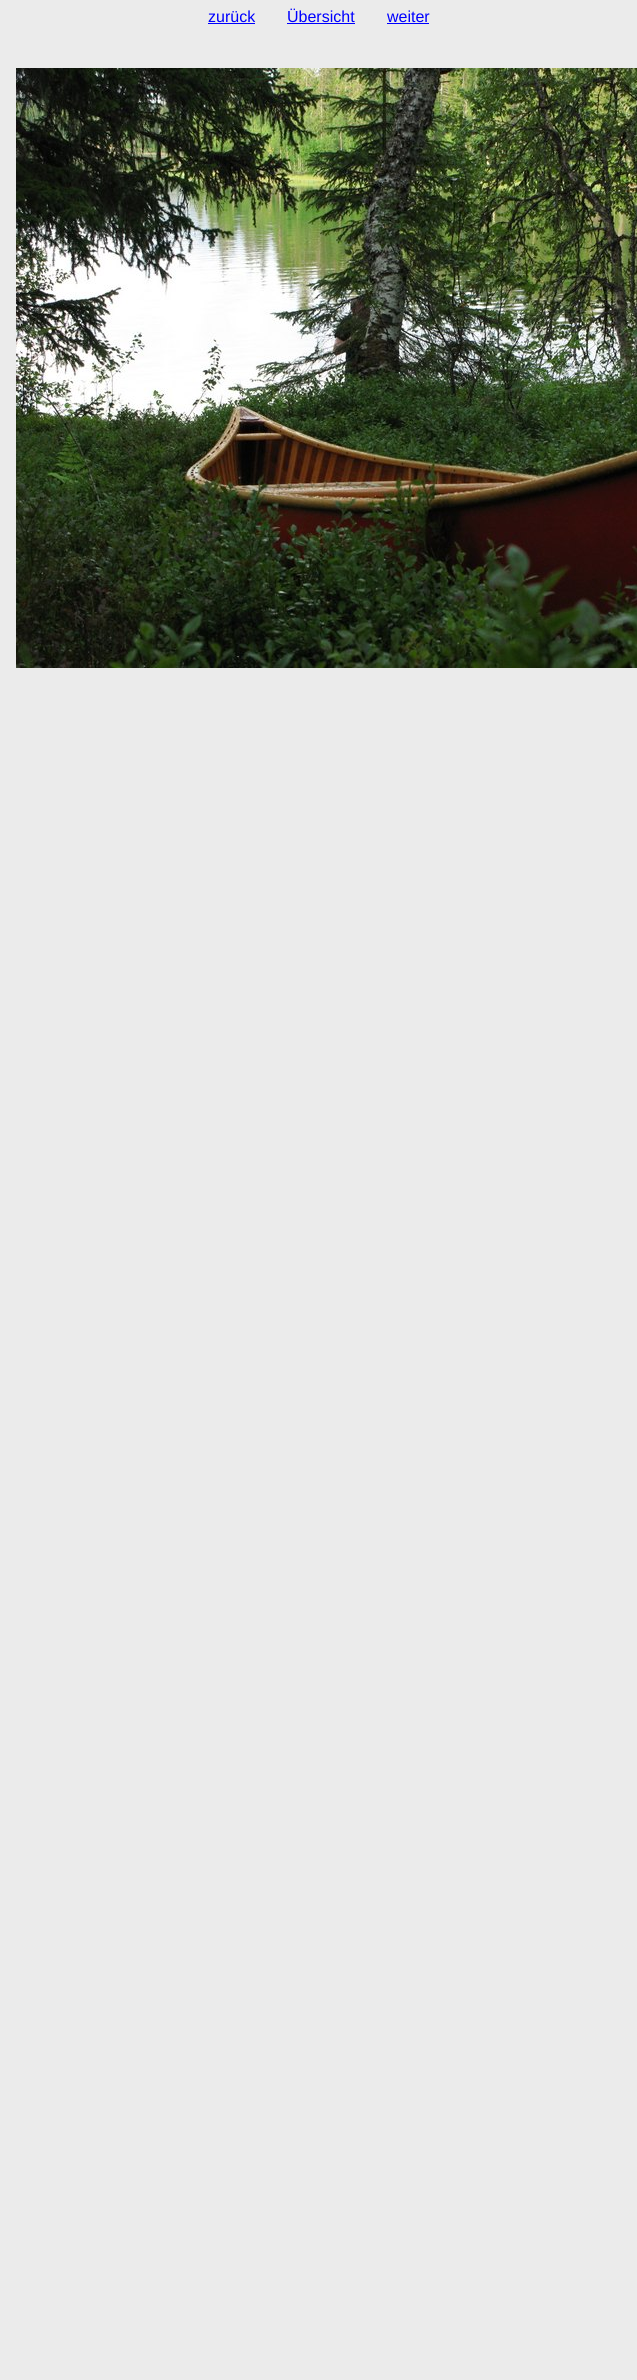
import math
import cairo

surface = cairo.ImageSurface(cairo.FORMAT_RGB24, 637, 2380)
c = cairo.Context(surface)
options = cairo.FontOptions()
options.set_hint_metrics(cairo.HINT_METRICS_OFF)
options.set_hint_style(cairo.HINT_STYLE_NONE)
c.set_font_options(options)
c.set_miter_limit(4)
def C(code):
 c.set_source_rgb(*(v / 255 for v in bytes.fromhex(code[-6:])))
def F(family, size, italic, bold):
 c.select_font_face(family, cairo.FONT_SLANT_ITALIC if italic else cairo.FONT_SLANT_NORMAL, cairo.FONT_WEIGHT_BOLD if bold else cairo.FONT_WEIGHT_NORMAL)
 c.set_font_size(size)
def T(x, y, s):
 c.move_to(x, y)
 c.show_text(s)
def R(x, y, w, h):
 c.rectangle(x, y, w, h)
 c.fill()
def I(path, x, y, w, h):
 c.save()
 c.set_source_surface(cairo.ImageSurface.create_from_png(path), x, y)
 c.rectangle(x, y, w, h)
 c.fill()
 c.restore()
C('ebebeb')
c.paint()
F('Liberation Sans',16,0,0)
C('0000ff')
T(208,22,'zurück')
R(208,23,47,1)
T(287,22,'Übersicht')
R(287,23,68,1)
T(387,22,'weiter')
R(387,23,42,1)
I('1.png',16,68,621,600)
surface.write_to_png('o.png')
